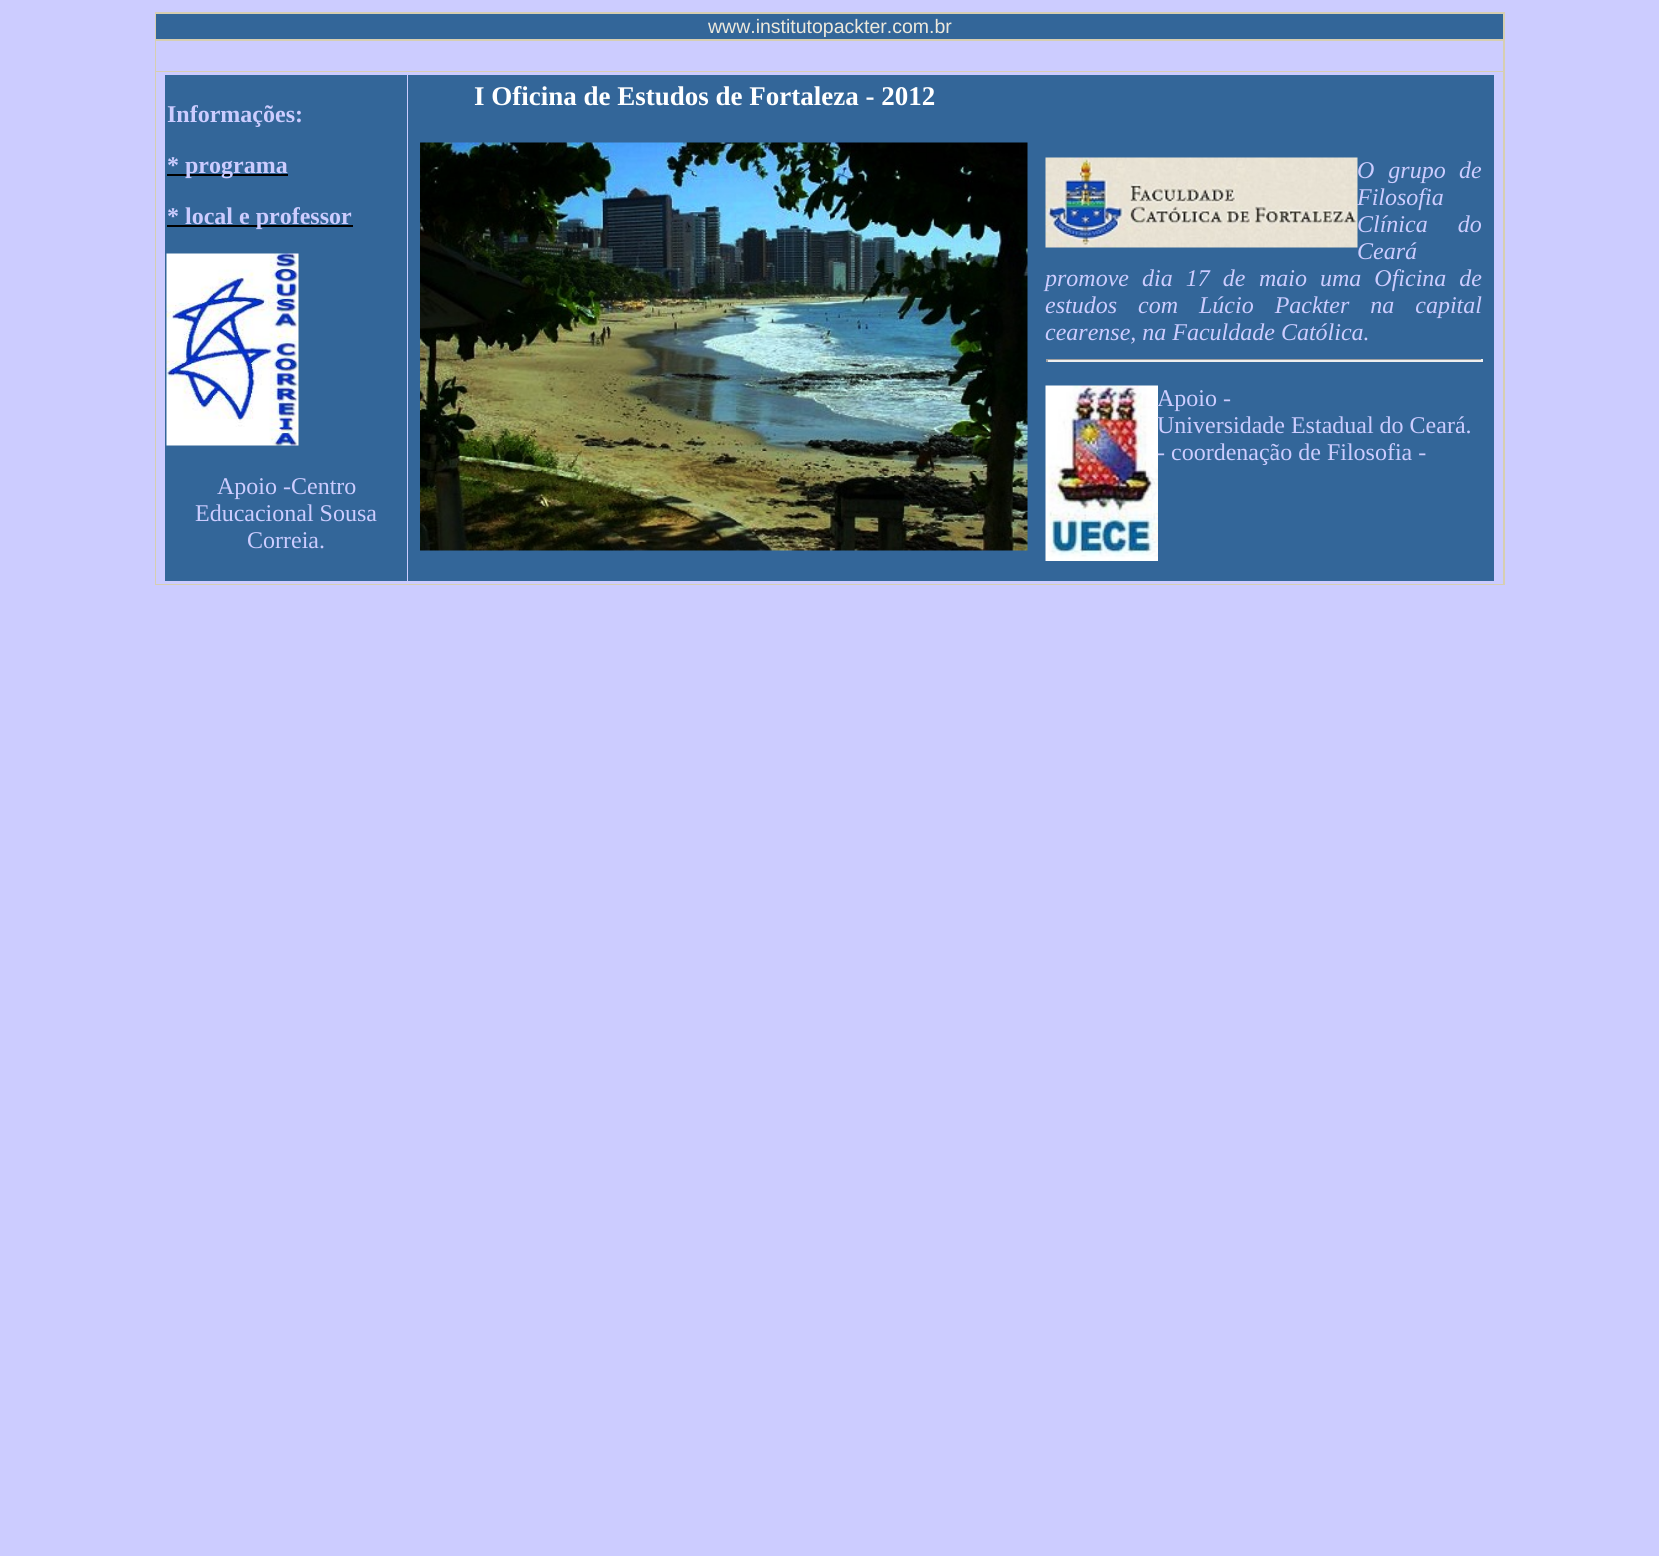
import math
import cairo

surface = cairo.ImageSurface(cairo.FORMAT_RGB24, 1659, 1556)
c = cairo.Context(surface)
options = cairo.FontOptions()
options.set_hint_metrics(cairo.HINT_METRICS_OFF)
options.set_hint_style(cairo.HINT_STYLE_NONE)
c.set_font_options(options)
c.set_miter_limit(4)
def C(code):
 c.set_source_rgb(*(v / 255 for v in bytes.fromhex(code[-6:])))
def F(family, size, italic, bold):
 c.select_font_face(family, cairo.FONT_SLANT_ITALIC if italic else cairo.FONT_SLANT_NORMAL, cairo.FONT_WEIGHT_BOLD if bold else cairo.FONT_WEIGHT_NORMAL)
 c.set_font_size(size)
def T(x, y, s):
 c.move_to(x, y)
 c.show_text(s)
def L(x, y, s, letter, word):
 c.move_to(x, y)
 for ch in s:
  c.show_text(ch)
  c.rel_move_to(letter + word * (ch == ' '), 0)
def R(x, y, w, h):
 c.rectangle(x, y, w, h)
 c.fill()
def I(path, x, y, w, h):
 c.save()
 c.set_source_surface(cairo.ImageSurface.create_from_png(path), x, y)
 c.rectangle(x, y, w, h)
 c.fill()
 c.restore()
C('ccccff')
c.paint()
C('d6ceb1')
R(155,12,1350,573)
C('336699')
R(156,14,1347,25)
F('Liberation Sans',19.5,0,0)
C('ede9dc')
T(708,33,'www.institutopackter.com.br')
C('ccccff')
R(156,41,1347,30)
R(156,72,1347,512)
C('336699')
R(165,75,242,506)
F('Liberation Serif',24,0,1)
C('ccccff')
T(167,122,'Informações:')
C('000000')
R(167,174,121,2)
C('ccccff')
T(167,173,'* programa')
C('000000')
R(167,225,186,2)
C('ccccff')
T(167,224,'* local e professor')
I('1.png',166,253,133,193)
F('Liberation Serif',24,0,0)
T(217,494,'Apoio -Centro')
T(195,521,'Educacional Sousa')
T(247,548,'Correia.')
C('336699')
R(408,75,1086,506)
F('Liberation Serif',27,0,1)
C('ffffff')
T(474,105,'I Oficina de Estudos de Fortaleza - 2012')
I('2.png',420,142,608,409)
I('3.png',1045,157,313,91)
F('Liberation Serif',24,1,0)
C('ccccff')
L(1357,178,'O grupo',0,8)
T(1459,178,'de')
T(1357,205,'Filosofia')
L(1357,232,'Clínica do',0,24)
T(1357,259,'Ceará')
L(1045,286,'promove dia 17 de',0,7)
L(1259,286,'maio uma Oficina de',0,7)
L(1045,313,'estudos com Lúcio Packter na capital',0,15)
T(1045,340,'cearense, na Faculdade Católica.')
C('9f9f9f')
R(1046,359,436,1)
C('eeeeee')
R(1481,359,2,3)
R(1046,360,436,2)
C('9f9f9f')
R(1046,359,2,3)
I('4.png',1045,385,113,176)
F('Liberation Serif',24,0,0)
C('ccccff')
T(1157,406,'Apoio -')
T(1157,433,'Universidade Estadual do Ceará.')
T(1157,460,'- coordenação de Filosofia -')
surface.write_to_png('o.png')
